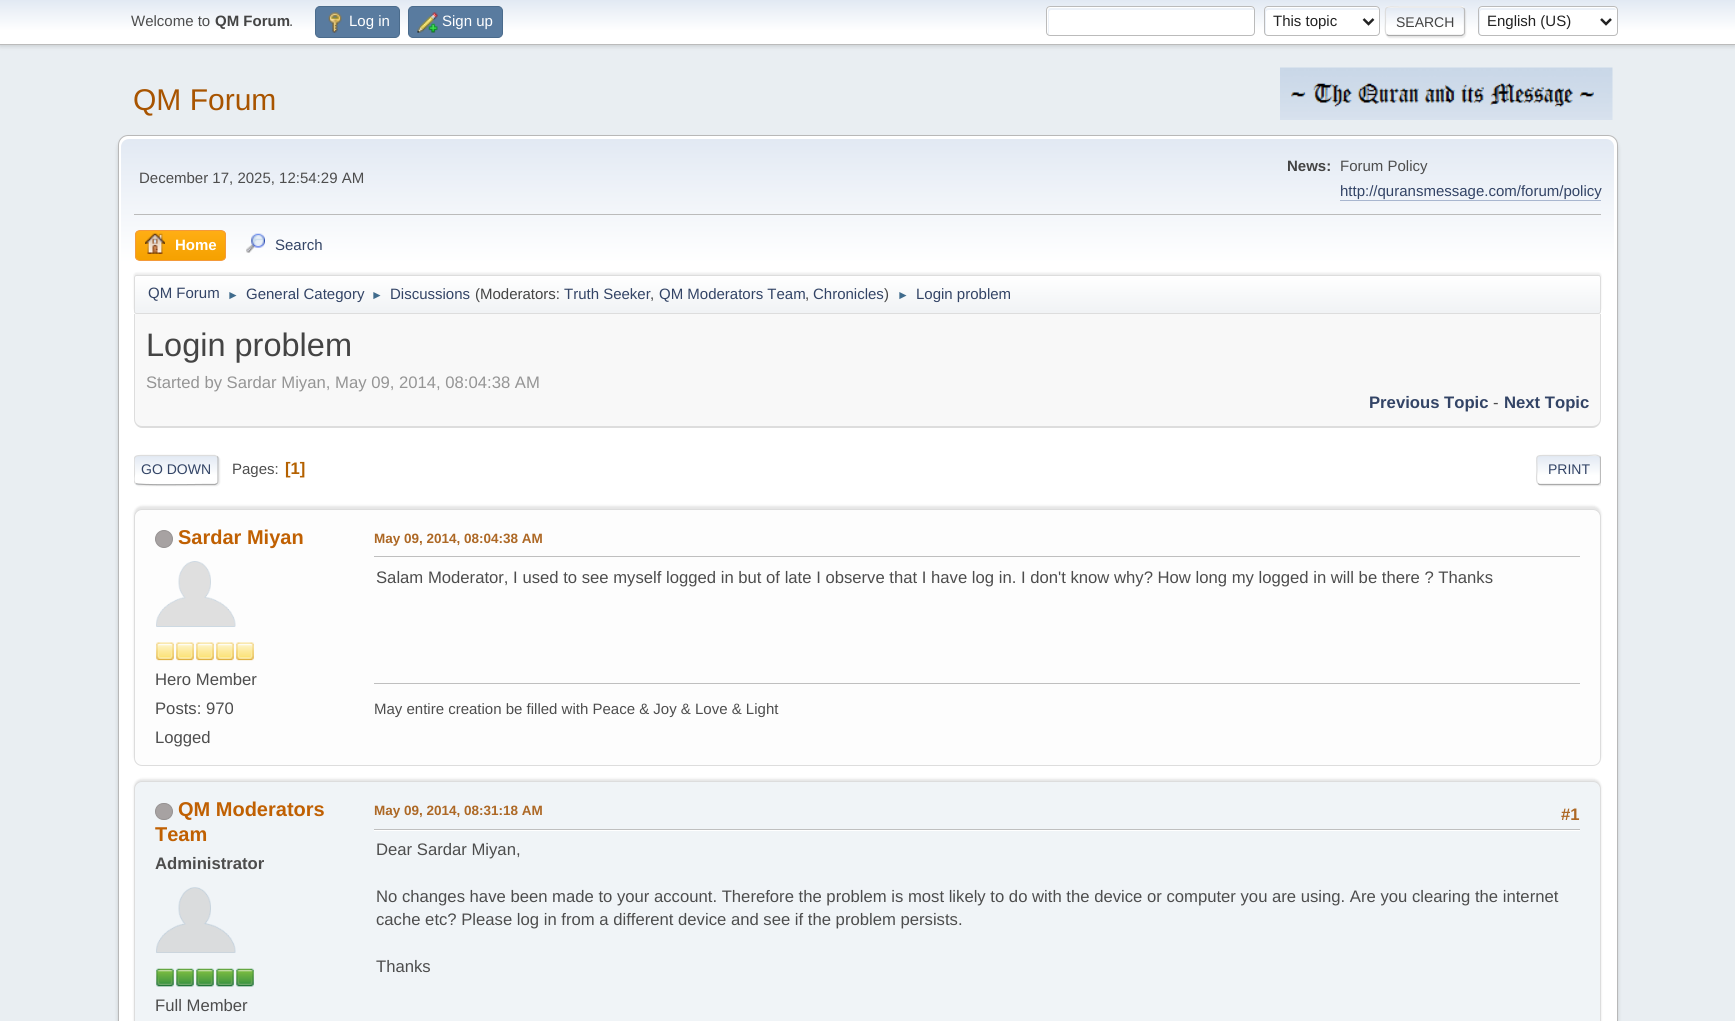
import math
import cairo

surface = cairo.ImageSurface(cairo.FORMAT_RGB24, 1735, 1021)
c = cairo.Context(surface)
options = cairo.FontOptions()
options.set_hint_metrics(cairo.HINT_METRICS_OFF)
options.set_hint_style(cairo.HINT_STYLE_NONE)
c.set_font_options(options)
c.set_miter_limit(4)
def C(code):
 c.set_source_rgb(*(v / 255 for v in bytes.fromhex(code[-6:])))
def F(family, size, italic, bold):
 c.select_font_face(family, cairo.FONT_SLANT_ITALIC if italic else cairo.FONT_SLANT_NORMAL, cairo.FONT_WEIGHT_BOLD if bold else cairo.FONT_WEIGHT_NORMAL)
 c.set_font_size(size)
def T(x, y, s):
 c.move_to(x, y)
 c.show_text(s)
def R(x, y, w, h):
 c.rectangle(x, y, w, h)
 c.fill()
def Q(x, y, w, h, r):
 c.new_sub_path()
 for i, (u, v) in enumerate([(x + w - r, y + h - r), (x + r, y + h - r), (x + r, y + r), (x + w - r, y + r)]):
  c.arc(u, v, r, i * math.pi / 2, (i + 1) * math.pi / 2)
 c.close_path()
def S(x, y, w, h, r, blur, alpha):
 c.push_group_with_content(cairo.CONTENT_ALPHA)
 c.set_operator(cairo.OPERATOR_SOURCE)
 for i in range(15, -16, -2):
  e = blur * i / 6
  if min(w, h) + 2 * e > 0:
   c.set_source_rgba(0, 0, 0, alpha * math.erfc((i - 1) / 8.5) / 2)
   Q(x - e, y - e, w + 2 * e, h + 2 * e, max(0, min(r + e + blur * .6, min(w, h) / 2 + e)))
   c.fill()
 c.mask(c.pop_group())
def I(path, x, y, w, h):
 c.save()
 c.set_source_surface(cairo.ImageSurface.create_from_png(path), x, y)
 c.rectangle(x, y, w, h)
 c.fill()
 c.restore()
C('e9eef2')
c.paint()
C('000000')
S(0,1,1735,45,0,2.5,.16)
gradient = cairo.LinearGradient(868,0,868,44)
gradient.add_color_stop_rgba(0,0.886,0.914,0.953,1)
gradient.add_color_stop_rgba(.7,1,1,1,1)
c.set_source(gradient)
R(0,0,1735,44)
C('bbbbbb')
R(0,44,1735,1)
F('Liberation Sans',15,0,0)
C('4d4d4d')
T(131,26,'Welcome to')
F('Liberation Sans',15,0,1)
C('444444')
T(215,26,'QM Forum')
F('Liberation Sans',15,0,0)
C('4d4d4d')
T(289,26,'.')
C('597b9f')
Q(315.5,6.5,84,31,4.5)
c.fill_preserve()
C('4a6b8c')
c.set_line_width(1)
c.stroke()
I('1.png',328,12,14,21)
C('ffffff')
T(349,26,'Log in')
C('597b9f')
Q(408.5,6.5,94,31,4.5)
c.fill_preserve()
C('4a6b8c')
c.stroke()
I('2.png',417,12,21,21)
C('ffffff')
T(442,26,'Sign up')
Q(1046,6,209,30,4)
c.fill()
C('ecf1f8')
c.new_path()
c.move_to(1051,10)
c.line_to(1252,10)
c.line_to(1254,10)
c.curve_to(1254,9,1253,8,1252,8)
c.line_to(1050,8)
c.curve_to(1049,8,1048,9,1048,10)
c.line_to(1048,32)
c.curve_to(1048,33,1048,34,1049,35)
c.line_to(1049,12)
c.curve_to(1049,11,1050,10,1051,10)
c.close_path()
c.fill()
Q(1046.5,6.5,208,29,3.5)
C('bbbbbb')
c.stroke()
C('ffffff')
Q(1264,6,116,30,4)
c.fill()
C('ecf1f8')
c.new_path()
c.move_to(1269,10)
c.line_to(1379,10)
c.curve_to(1379,9,1378,8,1376,8)
c.line_to(1268,8)
c.curve_to(1266,8,1265,9,1265,10)
c.line_to(1265,32)
c.curve_to(1265,33,1265,34,1266,35)
c.line_to(1266,12)
c.curve_to(1266,11,1267,10,1269,10)
c.close_path()
c.fill()
Q(1264.5,6.5,115,29,3.5)
C('bbbbbb')
c.stroke()
c.new_path()
c.move_to(1363.5,19)
c.line_to(1368.5,24)
c.line_to(1373.5,19)
C('222222')
c.set_line_width(2.5)
c.stroke()
T(1273,26,'This topic')
C('dddddd')
S(1386,8,80,30,4,.5,.57)
c.save()
Q(1385,6,80,30,4)
c.clip()
gradient = cairo.LinearGradient(1425,-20,1425,7.5)
gradient.add_color_stop_rgba(0,0.886,0.914,0.953,1)
gradient.add_color_stop_rgba(.7,1,1,1,1)
c.set_source(gradient)
R(1385,6,80,2)
gradient = cairo.LinearGradient(1425,7.5,1425,35)
gradient.add_color_stop_rgba(0,0.886,0.914,0.953,1)
gradient.add_color_stop_rgba(.7,1,1,1,1)
c.set_source(gradient)
R(1385,8,80,27)
c.restore()
c.new_path()
c.move_to(1463.5,8)
c.curve_to(1464,8.5,1464.5,9,1464.5,10)
c.line_to(1464.5,32.5)
c.curve_to(1464.5,33.5,1464,34,1463.5,34.5)
C('bbbbbb')
c.set_line_width(1.2)
c.stroke()
c.new_path()
c.move_to(1463.5,34.5)
c.line_to(1461.5,35.5)
c.line_to(1388.5,35.5)
c.line_to(1386.5,34.5)
C('aaaaaa')
c.stroke()
c.new_path()
c.move_to(1386.5,34.5)
c.curve_to(1384.5,32.5,1385.5,24,1385.5,21)
c.curve_to(1385.5,4.5,1383,7,1401,7)
c.line_to(1461,7)
c.line_to(1463.5,8)
C('dddddd')
c.stroke()
F('Liberation Sans',14,0,0)
C('444444')
T(1396,27,'SEARCH')
C('ffffff')
Q(1478,6,140,30,4)
c.fill()
C('ecf1f8')
c.new_path()
c.move_to(1482,10)
c.line_to(1616,10)
c.curve_to(1616,9,1615,8,1614,8)
c.line_to(1482,8)
c.curve_to(1480,8,1479,9,1479,10)
c.line_to(1479,32)
c.curve_to(1479,33,1479,34,1480,35)
c.line_to(1480,12)
c.curve_to(1480,11,1481,10,1482,10)
c.close_path()
c.fill()
Q(1478.5,6.5,139,29,3.5)
C('bbbbbb')
c.set_line_width(1)
c.stroke()
c.new_path()
c.move_to(1601,19)
c.line_to(1606,24)
c.line_to(1611,19)
C('222222')
c.set_line_width(2.5)
c.stroke()
F('Liberation Sans',15,0,0)
T(1487,26,'English (US)')
F('Liberation Sans',30,0,0)
C('a85400')
T(133,110,'QM Forum')
I('3.png',1280,67,333,53)
C('000000')
S(118,138,1500,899,10,2,.14)
C('ffffff')
Q(118.5,135.5,1499,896,9.5)
c.fill_preserve()
C('b8b8b8')
c.set_line_width(1)
c.stroke()
gradient = cairo.LinearGradient(868,139,868,316)
gradient.add_color_stop_rgba(0,0.886,0.914,0.953,1)
gradient.add_color_stop_rgba(.7,1,1,1,1)
c.set_source(gradient)
c.new_path()
c.move_to(129,139)
c.line_to(1606,139)
c.curve_to(1610.5,139,1614,142.5,1614,147)
c.line_to(1614,316)
c.line_to(121,316)
c.line_to(121,147)
c.curve_to(121,142.5,124.5,139,129,139)
c.close_path()
c.fill()
C('bbbbbb')
R(134,214,1467,1)
F('Liberation Sans',15,0,0)
C('4d4d4d')
T(139,183,'December 17, 2025, 12:54:29 AM')
F('Liberation Sans',15,0,1)
C('444444')
T(1287,171,'News:')
F('Liberation Sans',15,0,0)
C('4d4d4d')
T(1340,171,'Forum Policy')
C('334466')
T(1340,196,'http://quransmessage.com/forum/policy')
C('a8b6cf')
R(1340,200,261,1)
c.save()
Q(135,230,91,31,5)
c.clip()
gradient = cairo.LinearGradient(181,231,181,260)
gradient.add_color_stop_rgba(0,1,0.682,0.078,1)
gradient.add_color_stop_rgba(1,0.961,0.631,0,1)
c.set_source(gradient)
R(135,231,91,29)
c.restore()
Q(135.5,230.5,90,30,4.5)
C('f49a3a')
c.stroke()
I('4.png',145,233,20,21)
F('Liberation Sans',15,0,1)
C('ffffff')
T(175,250,'Home')
I('5.png',246,233,19,20)
F('Liberation Sans',15,0,0)
C('334466')
T(275,250,'Search')
C('000000')
S(134,273,1467,38,2.5,1,.08)
c.save()
Q(134,275,1467,39,2.5)
c.clip()
gradient = cairo.LinearGradient(868,276,868,313)
gradient.add_color_stop_rgba(0,1,1,1,1)
gradient.add_color_stop_rgba(.95,0.945,0.953,0.961,1)
c.set_source(gradient)
R(134,276,1467,37)
c.restore()
Q(134.5,275.5,1466,38,2)
C('dddddd')
c.stroke()
C('334466')
T(148,298,'QM Forum')
F('Liberation Sans',12,0,0)
C('3f6b8c')
T(227,299,'►')
F('Liberation Sans',15,0,0)
C('334466')
T(246,299,'General Category')
F('Liberation Sans',12,0,0)
C('3f6b8c')
T(371,299,'►')
F('Liberation Sans',15,0,0)
C('334466')
T(390,299,'Discussions')
C('444444')
T(475,299,'(Moderators:')
C('334466')
T(564,299,'Truth Seeker')
C('444444')
T(650,299,',')
C('334466')
T(659,299,'QM Moderators Team')
C('444444')
T(805,299,',')
C('334466')
T(813,299,'Chronicles')
C('444444')
T(884,299,')')
F('Liberation Sans',12,0,0)
C('3f6b8c')
T(897,299,'►')
F('Liberation Sans',15,0,0)
C('334466')
T(916,299,'Login problem')
C('f8f8f8')
c.new_path()
c.move_to(134,314)
c.line_to(1601,314)
c.line_to(1601,419)
c.curve_to(1601,424,1597,428,1592,428)
c.line_to(143,428)
c.curve_to(138,428,134,424,134,419)
c.close_path()
c.fill()
C('dddddd')
c.set_fill_rule(cairo.FILL_RULE_EVEN_ODD)
c.new_path()
c.move_to(134,314)
c.line_to(1601,314)
c.line_to(1601,419)
c.curve_to(1601,424,1597,428,1592,428)
c.line_to(142,428)
c.curve_to(138,428,134,424,134,419)
c.close_path()
c.move_to(135,314)
c.line_to(1600,314)
c.line_to(1600,419)
c.curve_to(1600,423,1597,426,1592,426)
c.line_to(142,426)
c.curve_to(138,426,135,423,135,419)
c.close_path()
c.fill()
F('Liberation Sans',32.5,0,0)
C('444444')
T(146,356,'Login problem')
F('Liberation Sans',16.67,0,0)
C('959595')
T(146,388,'Started by Sardar Miyan, May 09, 2014, 08:04:38 AM')
F('Liberation Sans',16.67,0,1)
C('334466')
T(1369,408,'Previous Topic')
F('Liberation Sans',16.67,0,0)
C('4d4d4d')
T(1493,408,'-')
F('Liberation Sans',16.67,0,1)
C('334466')
T(1504,408,'Next Topic')
C('dddddd')
S(135,456,85,30,4,.5,.57)
C('ffffff')
Q(134,455,85,30,4)
c.fill()
c.save()
c.set_fill_rule(cairo.FILL_RULE_WINDING)
Q(134,455,85,30,4)
c.clip()
gradient = cairo.LinearGradient(176,456,176,484)
gradient.add_color_stop_rgba(0,0.886,0.914,0.953,1)
gradient.add_color_stop_rgba(.7,1,1,1,1)
c.set_source(gradient)
R(134,456,85,28)
gradient = cairo.LinearGradient(176,484,176,511)
gradient.add_color_stop_rgba(0,0.886,0.914,0.953,1)
gradient.add_color_stop_rgba(.7,1,1,1,1)
c.set_source(gradient)
R(134,484,85,1)
c.restore()
c.new_path()
c.move_to(217,456.5)
c.curve_to(218,457,218,458,218,459)
c.line_to(218,481)
c.curve_to(218,482,218,483,217,483.5)
C('bbbbbb')
c.set_line_width(1.2)
c.stroke()
c.new_path()
c.move_to(217,483.5)
c.line_to(215,484.5)
c.line_to(202,484.5)
c.curve_to(194.5,484.5,137.5,485.5,135.5,483.5)
C('aaaaaa')
c.stroke()
c.save()
c.set_fill_rule(cairo.FILL_RULE_WINDING)
c.rectangle(134,446,1467,48)
c.clip()
c.new_path()
c.move_to(135.5,483.5)
c.curve_to(133,481,134.5,476.5,134.5,474)
c.curve_to(134.5,453.5,130.5,455.5,150.5,455.5)
c.line_to(215,455.5)
c.line_to(217,456.5)
C('dddddd')
c.stroke()
c.restore()
F('Liberation Sans',14,0,0)
C('334466')
T(141,474,'GO DOWN')
F('Liberation Sans',15,0,0)
C('4d4d4d')
T(232,474,'Pages:')
F('Liberation Sans',16.67,0,1)
C('b46100')
T(285,474,'[1]')
c.save()
c.set_fill_rule(cairo.FILL_RULE_WINDING)
c.rectangle(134,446,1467,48)
c.clip()
C('dddddd')
S(1538,456,65,30,4,.5,.57)
c.restore()
C('ffffff')
Q(1536,455,65,30,4)
c.fill()
c.save()
c.set_fill_rule(cairo.FILL_RULE_WINDING)
Q(1536,455,65,30,4)
c.clip()
gradient = cairo.LinearGradient(1569,456,1569,484)
gradient.add_color_stop_rgba(0,0.886,0.914,0.953,1)
gradient.add_color_stop_rgba(.7,1,1,1,1)
c.set_source(gradient)
R(1536,456,65,28)
c.restore()
c.save()
c.set_fill_rule(cairo.FILL_RULE_WINDING)
c.rectangle(134,446,1467,48)
c.clip()
c.new_path()
c.move_to(1599.5,456.5)
c.curve_to(1600.5,457,1600.5,458,1600.5,459)
c.line_to(1600.5,481)
c.curve_to(1600.5,482,1600.5,483,1599.5,483.5)
C('bbbbbb')
c.stroke()
c.restore()
c.new_path()
c.move_to(1599.5,483.5)
c.line_to(1598,484.5)
c.line_to(1539.5,484.5)
c.line_to(1538,483.5)
C('aaaaaa')
c.stroke()
c.new_path()
c.move_to(1538,483.5)
c.curve_to(1535.5,481.5,1537,472.5,1537,470)
c.curve_to(1537,454,1534,455.5,1549.5,455.5)
c.line_to(1588,455.5)
c.curve_to(1592,455.5,1596.5,454,1599.5,456.5)
C('dddddd')
c.stroke()
F('Liberation Sans',14,0,0)
C('334466')
T(1548,474,'PRINT')
C('000000')
S(134,506,1467,258,8,1,.1)
C('fdfdfd')
Q(134.5,509.5,1466,256,7.5)
c.fill_preserve()
C('dddddd')
c.set_line_width(1)
c.stroke()
C('a7a2a2')
c.arc(164,539,8.5,0,2 * math.pi)
c.fill_preserve()
C('969292')
c.stroke()
F('Liberation Sans',20,0,1)
C('c06002')
T(178,544,'Sardar Miyan')
I('6.png',156,561,80,66)
I('7.png',156,642,18,19)
I('7.png',176,642,18,19)
I('7.png',196,642,18,19)
I('7.png',216,642,18,19)
I('7.png',236,642,18,19)
F('Liberation Sans',16.67,0,0)
C('4d4d4d')
T(155,685,'Hero Member')
T(155,714,'Posts: 970')
T(155,743,'Logged')
F('Liberation Sans',13.5,0,1)
C('ad6825')
T(374,543,'May 09, 2014, 08:04:38 AM')
C('bfbfbf')
R(374,556,1206,1)
F('Liberation Sans',16.67,0,0)
C('4d4d4d')
T(376,583,'Salam Moderator, I used to see myself logged in but of late I observe that I have log in. I don\'t know why? How long my logged in will be there ? Thanks')
C('bfbfbf')
R(374,683,1206,1)
F('Liberation Sans',15,0,0)
C('4d4d4d')
T(374,714,'May entire creation be filled with Peace & Joy & Love & Light')
C('000000')
S(134,779,1467,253,8,1,.1)
C('f0f4f7')
Q(134.5,781.5,1466,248,7.5)
c.fill_preserve()
C('dddddd')
c.stroke()
C('a7a2a2')
Q(155.5,803.5,17,16,8)
c.fill_preserve()
C('969292')
c.stroke()
F('Liberation Sans',20,0,1)
C('c06002')
T(178,816,'QM Moderators')
T(155,841,'Team')
F('Liberation Sans',16.67,0,1)
C('4d4d4d')
T(155,869,'Administrator')
I('8.png',156,887,80,66)
I('9.png',156,968,18,19)
I('9.png',176,968,18,19)
I('9.png',196,968,18,19)
I('9.png',216,968,18,19)
I('9.png',236,968,18,19)
F('Liberation Sans',16.67,0,0)
T(155,1011,'Full Member')
F('Liberation Sans',13.5,0,1)
C('ad6825')
T(374,815,'May 09, 2014, 08:31:18 AM')
F('Liberation Sans',16.67,0,1)
T(1561,820,'#1')
C('ffffff')
R(374,830,1206,1)
C('bfbfbf')
R(374,829,1206,1)
F('Liberation Sans',16.67,0,0)
C('4d4d4d')
T(376,855,'Dear Sardar Miyan,')
T(376,902,'No changes have been made to your account. Therefore the problem is most likely to do with the device or computer you are using. Are you clearing the internet')
T(376,925,'cache etc? Please log in from a different device and see if the problem persists.')
T(376,972,'Thanks')
surface.write_to_png('o.png')
